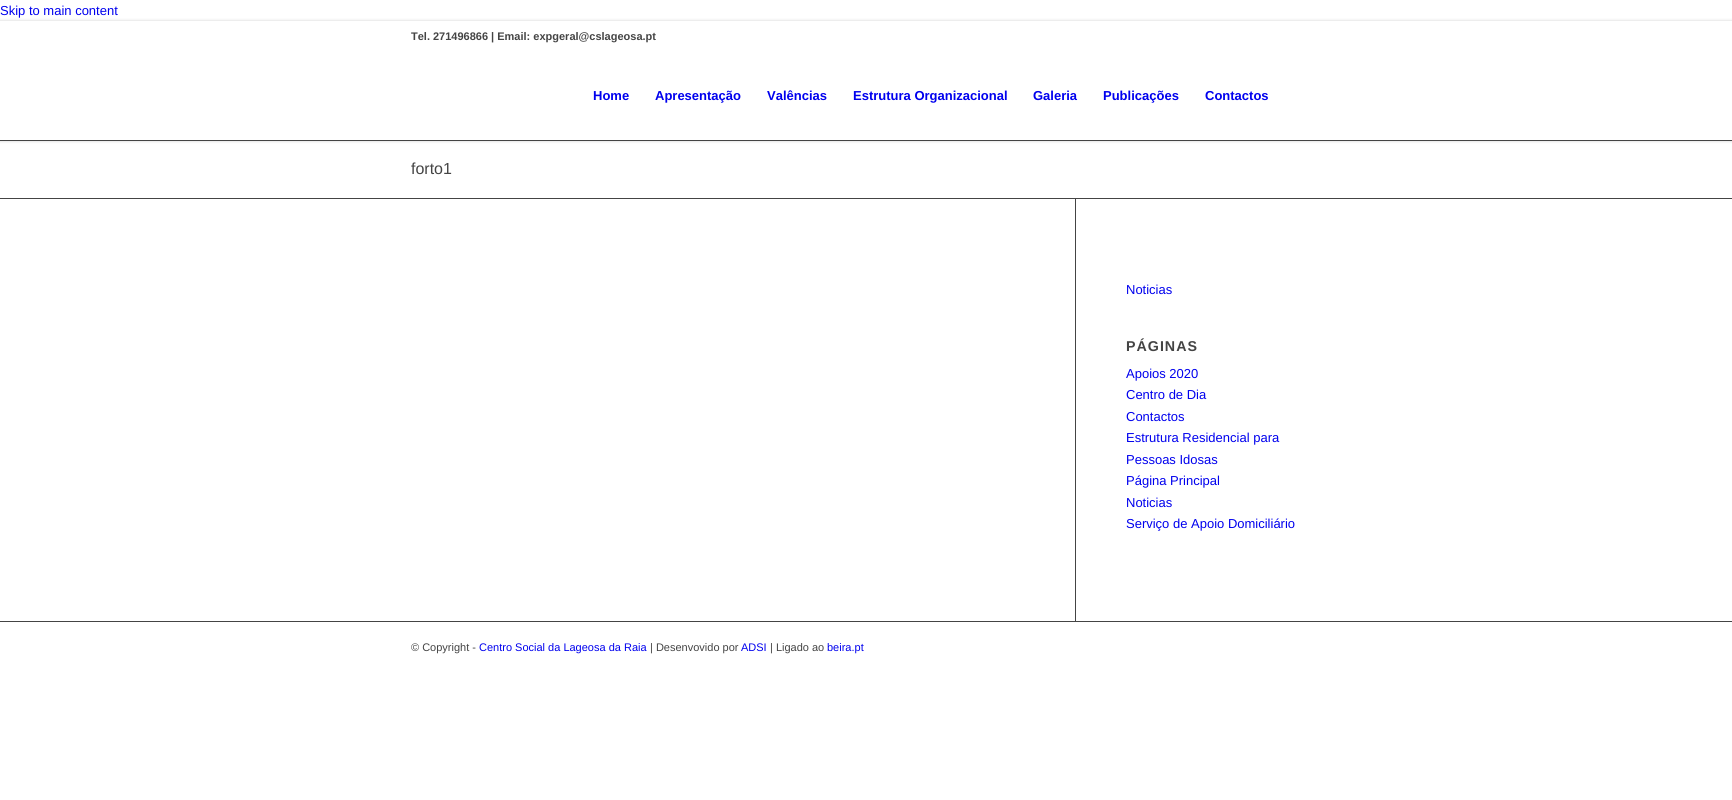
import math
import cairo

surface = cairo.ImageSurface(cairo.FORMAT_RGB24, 1732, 800)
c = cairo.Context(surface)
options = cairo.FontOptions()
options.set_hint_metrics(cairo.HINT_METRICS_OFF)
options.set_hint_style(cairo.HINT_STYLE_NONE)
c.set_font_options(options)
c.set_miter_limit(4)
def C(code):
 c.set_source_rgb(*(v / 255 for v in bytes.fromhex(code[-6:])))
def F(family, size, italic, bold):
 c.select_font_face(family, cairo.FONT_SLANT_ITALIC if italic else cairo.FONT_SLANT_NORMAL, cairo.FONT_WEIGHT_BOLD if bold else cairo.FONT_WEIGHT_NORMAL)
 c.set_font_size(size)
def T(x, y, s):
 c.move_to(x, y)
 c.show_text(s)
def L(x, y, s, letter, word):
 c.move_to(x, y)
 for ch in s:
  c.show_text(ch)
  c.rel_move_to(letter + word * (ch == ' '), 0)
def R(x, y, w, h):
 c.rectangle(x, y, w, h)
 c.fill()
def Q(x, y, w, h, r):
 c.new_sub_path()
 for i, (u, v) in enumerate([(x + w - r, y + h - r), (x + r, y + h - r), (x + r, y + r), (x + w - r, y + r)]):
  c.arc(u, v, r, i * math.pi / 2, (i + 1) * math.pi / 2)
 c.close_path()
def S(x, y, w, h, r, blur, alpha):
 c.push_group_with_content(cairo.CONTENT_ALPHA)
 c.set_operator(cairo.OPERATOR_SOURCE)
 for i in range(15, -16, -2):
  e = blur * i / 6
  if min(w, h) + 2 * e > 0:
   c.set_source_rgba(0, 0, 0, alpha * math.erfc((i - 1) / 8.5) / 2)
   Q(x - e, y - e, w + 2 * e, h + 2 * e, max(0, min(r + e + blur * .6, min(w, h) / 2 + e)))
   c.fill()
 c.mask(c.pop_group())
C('ffffff')
c.paint()
F('Liberation Sans',13,0,0)
C('0000ee')
T(0,15,'Skip to main content')
C('444444')
R(0,140,1732,1)
c.save()
c.set_fill_rule(cairo.FILL_RULE_EVEN_ODD)
c.new_path()
c.move_to(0,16)
c.line_to(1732,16)
c.line_to(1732,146)
c.line_to(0,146)
c.close_path()
c.move_to(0,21)
c.line_to(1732,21)
c.line_to(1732,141)
c.line_to(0,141)
c.close_path()
c.clip()
C('000000')
S(-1,20,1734,122,0,1,.1)
c.restore()
F('Liberation Sans',11,0,1)
T(411,40,'Tel. 271496866 | Email: expgeral@cslageosa.pt')
F('Liberation Sans',13,0,1)
C('0000ee')
T(593,100,'Home')
T(655,100,'Apresentação')
T(767,100,'Valências')
T(853,100,'Estrutura Organizacional')
T(1033,100,'Galeria')
T(1103,100,'Publicações')
T(1205,100,'Contactos')
F('Liberation Sans',16,0,0)
C('444444')
T(411,174,'forto1')
R(0,198,1732,1)
R(1075,199,1,422)
F('Liberation Sans',13,0,0)
C('0000ee')
T(1126,294,'Noticias')
F('Liberation Sans',14.25,0,1)
C('444444')
L(1126,351,'PÁGINAS',1,0)
F('Liberation Sans',13,0,0)
C('0000ee')
T(1126,378,'Apoios 2020')
T(1126,399,'Centro de Dia')
T(1126,421,'Contactos')
T(1126,442,'Estrutura Residencial para')
T(1126,464,'Pessoas Idosas')
T(1126,485,'Página Principal')
T(1126,507,'Noticias')
T(1126,528,'Serviço de Apoio Domiciliário')
C('444444')
R(0,621,1732,1)
F('Liberation Sans',11,0,0)
T(411,651,'© Copyright -')
C('0000ee')
T(479,651,'Centro Social da Lageosa da Raia')
C('444444')
T(650,651,'| Desenvovido por')
C('0000ee')
T(741,651,'ADSI')
C('444444')
T(770,651,'| Ligado ao')
C('0000ee')
T(827,651,'beira.pt')
surface.write_to_png('o.png')
